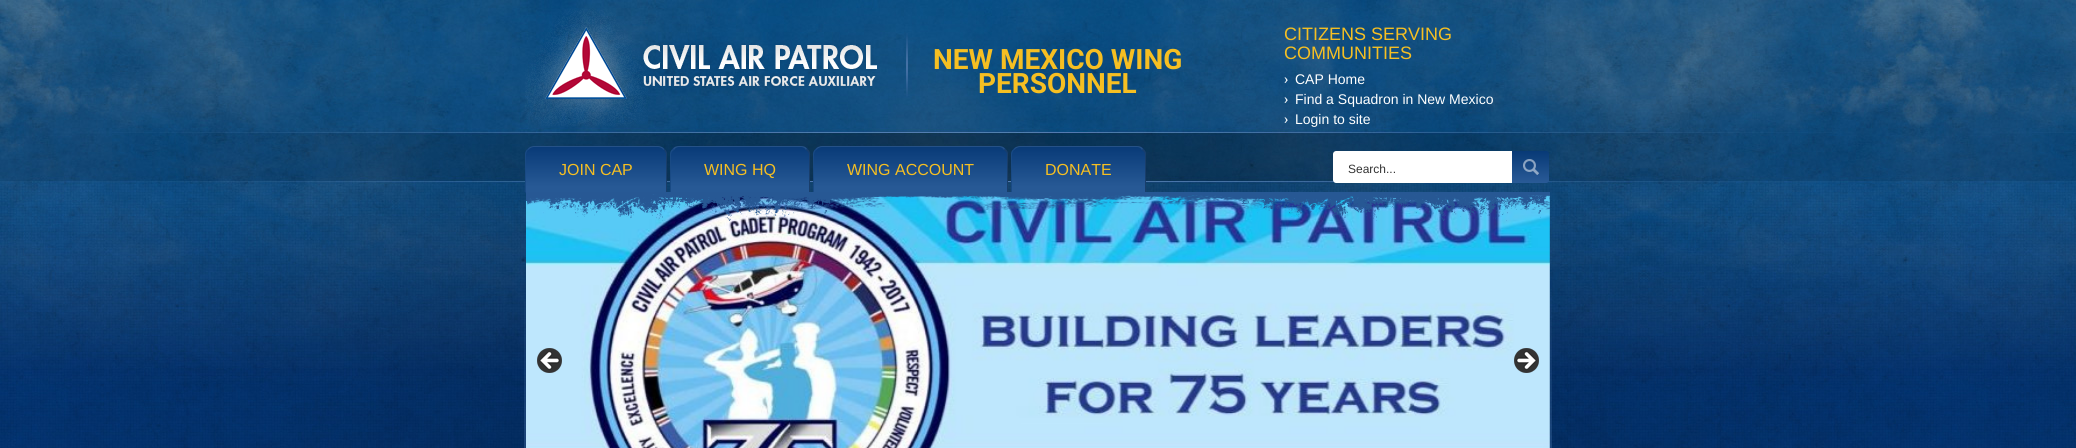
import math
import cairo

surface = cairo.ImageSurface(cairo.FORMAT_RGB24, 2076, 448)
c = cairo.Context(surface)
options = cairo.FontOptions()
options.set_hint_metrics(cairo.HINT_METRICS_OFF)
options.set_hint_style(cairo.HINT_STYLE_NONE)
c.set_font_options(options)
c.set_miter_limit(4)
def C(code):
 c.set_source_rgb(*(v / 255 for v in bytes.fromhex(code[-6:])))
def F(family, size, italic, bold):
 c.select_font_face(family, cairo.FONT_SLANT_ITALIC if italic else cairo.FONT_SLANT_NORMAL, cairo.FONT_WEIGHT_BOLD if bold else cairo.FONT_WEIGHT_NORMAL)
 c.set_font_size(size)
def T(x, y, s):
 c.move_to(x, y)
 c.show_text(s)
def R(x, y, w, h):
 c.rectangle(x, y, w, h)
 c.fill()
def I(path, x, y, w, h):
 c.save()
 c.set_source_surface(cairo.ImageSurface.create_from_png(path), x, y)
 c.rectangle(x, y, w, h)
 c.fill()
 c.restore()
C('ffffff')
c.paint()
I('1.png',0,0,2076,448)
I('2.png',525,9,352,117)
I('3.png',906,33,2,64)
F('Roboto',28,0,1)
C('f6bf22')
T(933,69,'NEW MEXICO WING')
T(978,93,'PERSONNEL')
F('Liberation Sans',18,0,0)
T(1284,40,'CITIZENS SERVING')
T(1284,59,'COMMUNITIES')
I('4.png',1284,77,4,6)
F('Liberation Sans',14,0,0)
C('ffffff')
T(1295,84,'CAP Home')
I('5.png',1284,97,4,6)
T(1295,104,'Find a Squadron in New Mexico')
I('6.png',1284,117,4,6)
T(1295,124,'Login to site')
c.save()
c.new_path()
c.move_to(534,146)
c.line_to(658,146)
c.curve_to(663,146,667,150,667,155)
c.line_to(667,193)
c.line_to(525,193)
c.line_to(525,155)
c.curve_to(525,150,529,146,534,146)
c.close_path()
c.clip()
gradient = cairo.LinearGradient(596,147,596,192)
gradient.add_color_stop_rgba(.01,0.035,0.231,0.471,1)
gradient.add_color_stop_rgba(.88,0.153,0.349,0.584,1)
c.set_source(gradient)
R(525,147,142,45)
c.restore()
gradient = cairo.LinearGradient(596,192,596,237)
gradient.add_color_stop_rgba(.01,0.035,0.231,0.471,1)
gradient.add_color_stop_rgba(.88,0.153,0.349,0.584,1)
c.set_source(gradient)
R(525,192,1,1)
C('255187')
c.new_path()
c.move_to(534,146)
c.curve_to(532,146,529,147,528,149)
c.line_to(528,150)
c.curve_to(530,148,532,147,534,147)
c.line_to(658,147)
c.curve_to(660,147,662,148,664,150)
c.line_to(664,149)
c.curve_to(663,147,660,146,658,146)
c.close_path()
c.fill()
C('193e6b')
c.new_path()
c.move_to(667,193)
c.line_to(667,155)
c.curve_to(667,152,666,150,664,149)
c.line_to(664,150)
c.curve_to(665,151,666,153,666,155)
c.line_to(666,192)
c.close_path()
c.fill()
C('194a84')
c.new_path()
c.move_to(525,193)
c.line_to(526,192)
c.line_to(526,155)
c.curve_to(526,153,527,151,528,150)
c.line_to(528,149)
c.curve_to(526,150,525,152,525,155)
c.close_path()
c.fill()
F('Liberation Sans',16,0,0)
C('f6bf22')
T(559,175,'JOIN CAP')
c.save()
c.new_path()
c.move_to(679,146)
c.line_to(801,146)
c.curve_to(806,146,810,150,810,155)
c.line_to(810,193)
c.line_to(670,193)
c.line_to(670,155)
c.curve_to(670,150,674,146,679,146)
c.close_path()
c.clip()
gradient = cairo.LinearGradient(740,147,740,192)
gradient.add_color_stop_rgba(.01,0.035,0.231,0.471,1)
gradient.add_color_stop_rgba(.88,0.153,0.349,0.584,1)
c.set_source(gradient)
R(670,147,140,45)
c.restore()
C('255187')
c.new_path()
c.move_to(679,146)
c.curve_to(676,146,674,147,673,149)
c.line_to(674,150)
c.curve_to(675,148,677,147,679,147)
c.line_to(801,147)
c.curve_to(803,147,805,148,806,150)
c.line_to(807,149)
c.curve_to(806,147,804,146,801,146)
c.close_path()
c.fill()
C('193e6b')
c.new_path()
c.move_to(810,193)
c.line_to(810,155)
c.curve_to(810,152,809,150,807,149)
c.line_to(806,150)
c.curve_to(808,151,809,153,809,155)
c.line_to(809,192)
c.close_path()
c.fill()
C('194a84')
c.new_path()
c.move_to(670,193)
c.line_to(671,192)
c.line_to(671,155)
c.curve_to(671,153,672,151,674,150)
c.line_to(673,149)
c.curve_to(671,150,670,152,670,155)
c.close_path()
c.fill()
C('f6bf22')
T(704,175,'WING HQ')
c.save()
c.new_path()
c.move_to(822,146)
c.line_to(999,146)
c.curve_to(1004,146,1008,150,1008,155)
c.line_to(1008,193)
c.line_to(813,193)
c.line_to(813,155)
c.curve_to(813,150,817,146,822,146)
c.close_path()
c.clip()
gradient = cairo.LinearGradient(911,147,911,192)
gradient.add_color_stop_rgba(.01,0.035,0.231,0.471,1)
gradient.add_color_stop_rgba(.88,0.153,0.349,0.584,1)
c.set_source(gradient)
R(813,147,195,45)
c.restore()
C('255187')
c.new_path()
c.move_to(822,146)
c.curve_to(820,146,817,147,816,149)
c.line_to(816,150)
c.curve_to(818,148,820,147,822,147)
c.line_to(999,147)
c.curve_to(1001,147,1003,148,1004,150)
c.line_to(1005,149)
c.curve_to(1004,147,1002,146,999,146)
c.close_path()
c.fill()
C('193e6b')
c.new_path()
c.move_to(1008,193)
c.line_to(1008,155)
c.curve_to(1008,152,1007,150,1005,149)
c.line_to(1004,150)
c.curve_to(1006,151,1007,153,1007,155)
c.line_to(1007,192)
c.close_path()
c.fill()
C('194a84')
c.new_path()
c.move_to(813,193)
c.line_to(814,192)
c.line_to(814,155)
c.curve_to(814,153,815,151,816,150)
c.line_to(816,149)
c.curve_to(814,150,813,152,813,155)
c.close_path()
c.fill()
C('f6bf22')
T(847,175,'WING ACCOUNT')
c.save()
c.new_path()
c.move_to(1020,146)
c.line_to(1137,146)
c.curve_to(1142,146,1146,150,1146,155)
c.line_to(1146,193)
c.line_to(1011,193)
c.line_to(1011,155)
c.curve_to(1011,150,1015,146,1020,146)
c.close_path()
c.clip()
gradient = cairo.LinearGradient(1079,147,1079,192)
gradient.add_color_stop_rgba(.01,0.035,0.231,0.471,1)
gradient.add_color_stop_rgba(.88,0.153,0.349,0.584,1)
c.set_source(gradient)
R(1011,147,135,45)
c.restore()
C('255187')
c.new_path()
c.move_to(1020,146)
c.curve_to(1018,146,1015,147,1014,149)
c.line_to(1014,150)
c.curve_to(1016,148,1018,147,1020,147)
c.line_to(1137,147)
c.curve_to(1139,147,1141,148,1142,150)
c.line_to(1143,149)
c.curve_to(1142,147,1140,146,1137,146)
c.close_path()
c.fill()
C('193e6b')
c.new_path()
c.move_to(1146,193)
c.line_to(1146,155)
c.curve_to(1146,152,1145,150,1143,149)
c.line_to(1142,150)
c.curve_to(1144,151,1145,153,1145,155)
c.line_to(1145,192)
c.close_path()
c.fill()
C('194a84')
c.new_path()
c.move_to(1011,193)
c.line_to(1012,192)
c.line_to(1012,155)
c.curve_to(1012,153,1013,151,1014,150)
c.line_to(1014,149)
c.curve_to(1012,150,1011,152,1011,155)
c.close_path()
c.fill()
C('f6bf22')
T(1045,175,'DONATE')
C('ffffff')
c.new_path()
c.move_to(1336,151)
c.line_to(1512,151)
c.line_to(1512,183)
c.line_to(1336,183)
c.curve_to(1334.5,183,1333,181.5,1333,180)
c.line_to(1333,154)
c.curve_to(1333,152.5,1334.5,151,1336,151)
c.close_path()
c.fill()
F('Liberation Sans',12,0,0)
C('333333')
T(1348,173,'Search...')
I('7.png',1512,151,37,32)
I('8.png',524,299,2,149)
I('10.png',526,194,1024,254)
I('9.png',526,192,1024,29)
I('11.png',537,348,25,25)
I('12.png',1514,348,25,25)
I('13.png',1550,292,2,156)
surface.write_to_png('o.png')
